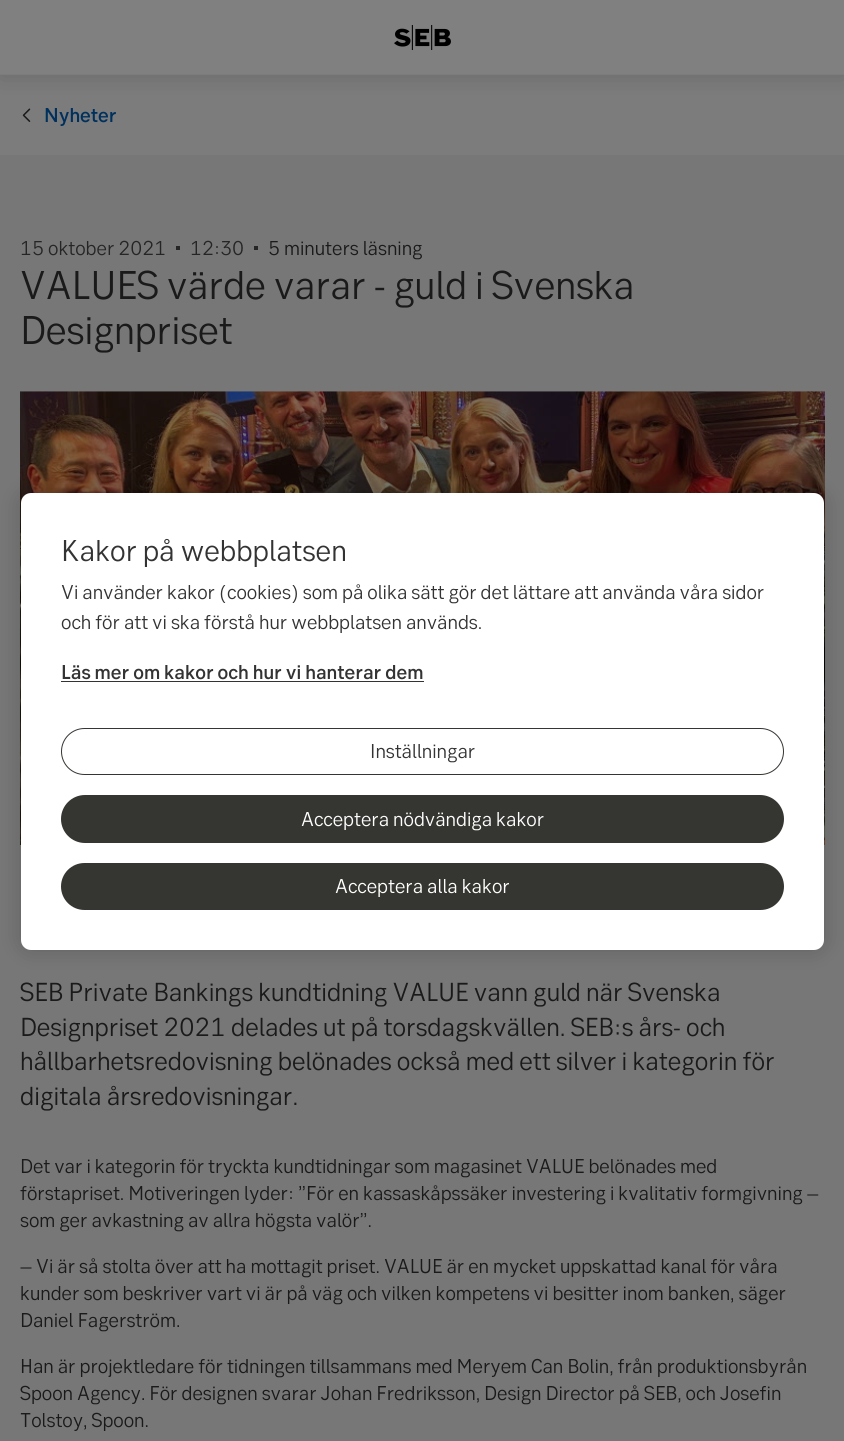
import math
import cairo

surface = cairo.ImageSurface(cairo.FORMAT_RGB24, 844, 1441)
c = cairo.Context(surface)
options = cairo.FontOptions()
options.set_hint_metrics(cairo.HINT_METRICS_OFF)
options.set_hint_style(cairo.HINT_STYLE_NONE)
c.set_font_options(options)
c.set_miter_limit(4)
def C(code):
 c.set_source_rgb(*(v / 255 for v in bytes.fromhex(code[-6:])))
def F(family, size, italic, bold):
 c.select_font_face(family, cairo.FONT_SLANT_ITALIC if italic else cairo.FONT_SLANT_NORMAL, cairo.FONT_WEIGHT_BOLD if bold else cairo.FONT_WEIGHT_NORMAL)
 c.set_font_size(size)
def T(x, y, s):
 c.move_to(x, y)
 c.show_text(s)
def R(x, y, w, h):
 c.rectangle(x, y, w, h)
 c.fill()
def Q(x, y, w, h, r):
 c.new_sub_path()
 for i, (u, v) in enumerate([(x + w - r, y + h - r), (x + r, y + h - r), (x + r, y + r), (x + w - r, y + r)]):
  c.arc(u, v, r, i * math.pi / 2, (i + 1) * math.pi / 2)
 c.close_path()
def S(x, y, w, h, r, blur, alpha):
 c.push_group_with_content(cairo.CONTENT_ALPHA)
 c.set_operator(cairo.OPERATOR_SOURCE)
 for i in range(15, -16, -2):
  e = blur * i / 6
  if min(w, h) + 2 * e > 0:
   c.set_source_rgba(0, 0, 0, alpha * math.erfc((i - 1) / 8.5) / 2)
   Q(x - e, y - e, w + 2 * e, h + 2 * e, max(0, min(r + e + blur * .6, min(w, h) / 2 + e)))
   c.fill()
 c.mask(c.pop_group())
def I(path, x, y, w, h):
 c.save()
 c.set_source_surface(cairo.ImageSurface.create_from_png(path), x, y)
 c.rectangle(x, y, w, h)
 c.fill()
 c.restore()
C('777777')
c.paint()
C('7c7c7c')
R(0,75,844,80)
I('2.png',22,108,9,14)
C('000000')
S(0,1,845,75,0,12.5,.15)
C('808080')
R(0,0,844,74)
C('7c7c7c')
R(0,74,844,1)
I('1.png',394,25,57,25)
F('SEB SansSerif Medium',20,0,0)
C('00315e')
T(44,122,'Nyheter')
F('SEB SansSerif',20,0,0)
C('252525')
T(20,255,'15 oktober 2021')
R(176,246,4,4)
T(190,255,'12:30')
R(254,246,4,4)
C('1a1a1a')
T(268,255,'5 minuters läsning')
F('SEB SansSerif',40,0,0)
T(20,299,'VALUES värde varar - guld i Svenska')
T(20,344,'Designpriset')
I('3.png',20,391,805,454)
F('SEB SansSerif',26,0,0)
T(20,1001,'SEB Private Bankings kundtidning VALUE vann guld när Svenska')
T(20,1036,'Designpriset 2021 delades ut på torsdagskvällen. SEB:s års- och')
T(20,1070,'hållbarhetsredovisning belönades också med ett silver i kategorin för')
T(20,1105,'digitala årsredovisningar.')
F('SEB SansSerif',20,0,0)
T(20,1173,'Det var i kategorin för tryckta kundtidningar som magasinet VALUE belönades med')
T(20,1200,'förstapriset. Motiveringen lyder: ”För en kassaskåpssäker investering i kvalitativ formgivning –')
T(20,1227,'som ger avkastning av allra högsta valör”.')
T(20,1273,'– Vi är så stolta över att ha mottagit priset. VALUE är en mycket uppskattad kanal för våra')
T(20,1300,'kunder som beskriver vart vi är på väg och vilken kompetens vi besitter inom banken, säger')
T(20,1327,'Daniel Fagerström.')
T(20,1373,'Han är projektledare för tidningen tillsammans med Meryem Can Bolin, från produktionsbyrån')
T(20,1400,'Spoon Agency. För designen svarar Johan Fredriksson, Design Director på SEB, och Josefin')
T(20,1427,'Tolstoy, Spoon.')
C('000000')
S(21,493,803,457,10,11,.2)
C('ffffff')
Q(21,493,803,457,10)
c.fill()
F('SEB SansSerif',30,0,0)
C('333333')
T(61,561,'Kakor på webbplatsen')
F('SEB SansSerif',20,0,0)
T(61,599,'Vi använder kakor (cookies) som på olika sätt gör det lättare att använda våra sidor')
T(61,629,'och för att vi ska förstå hur webbplatsen används.')
F('SEB SansSerif Medium',20,0,0)
T(61,679,'Läs mer om kakor och hur vi hanterar dem')
R(61,681,363,1)
Q(61.5,728.5,722,46,23)
C('353531')
c.set_line_width(1)
c.stroke()
F('SEB SansSerif',20,0,0)
C('333333')
T(370,758,'Inställningar')
C('353531')
Q(61,795,723,48,24)
c.fill()
C('ffffff')
T(301,826,'Acceptera nödvändiga kakor')
C('353531')
Q(61,863,723,47,23.5)
c.fill()
C('ffffff')
T(335,893,'Acceptera alla kakor')
surface.write_to_png('o.png')
